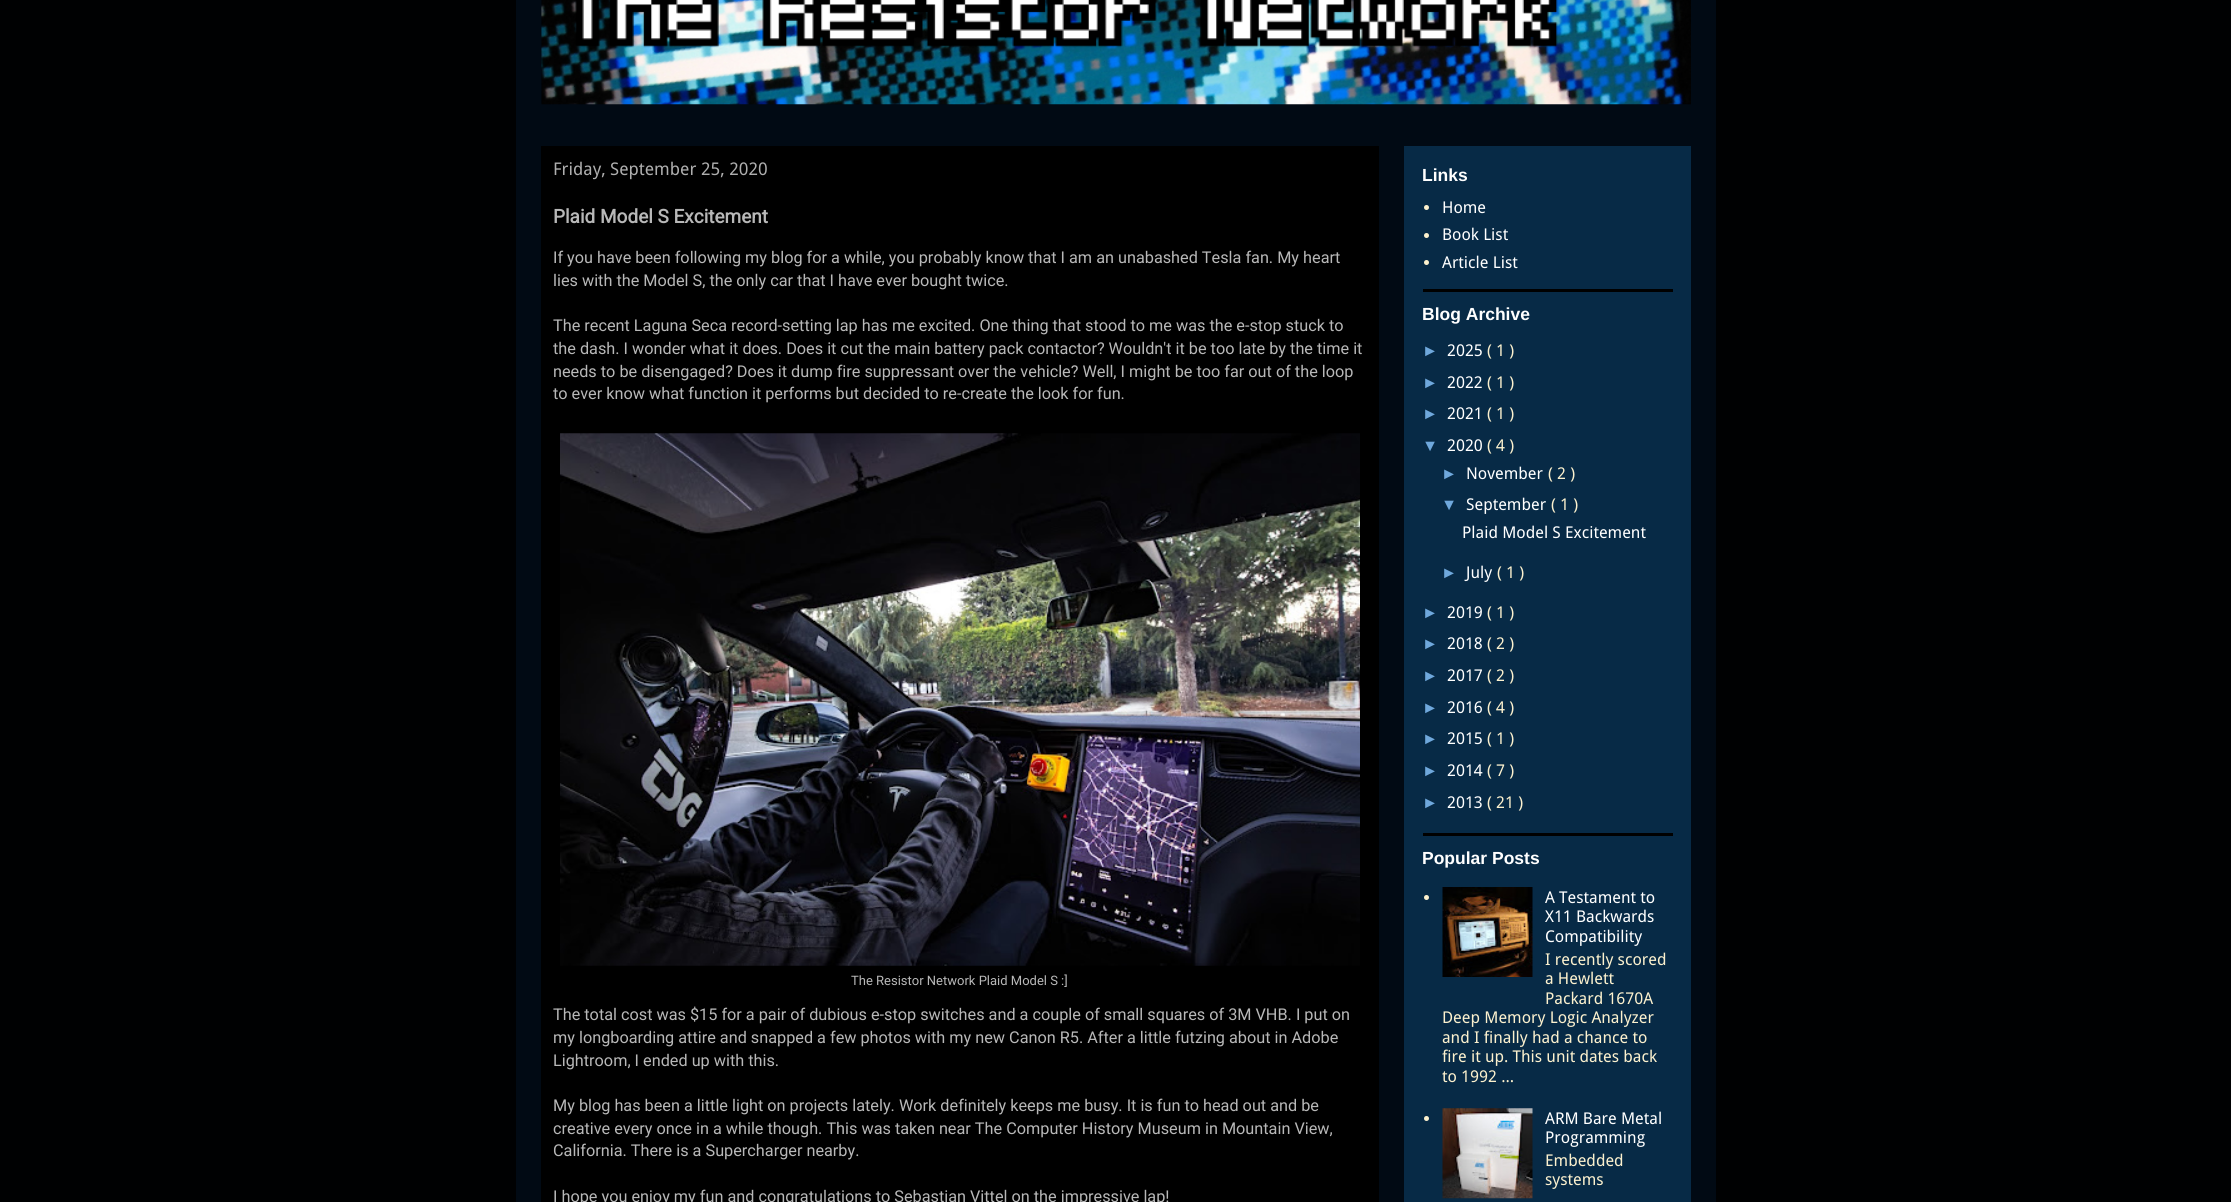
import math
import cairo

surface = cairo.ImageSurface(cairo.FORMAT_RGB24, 2231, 1202)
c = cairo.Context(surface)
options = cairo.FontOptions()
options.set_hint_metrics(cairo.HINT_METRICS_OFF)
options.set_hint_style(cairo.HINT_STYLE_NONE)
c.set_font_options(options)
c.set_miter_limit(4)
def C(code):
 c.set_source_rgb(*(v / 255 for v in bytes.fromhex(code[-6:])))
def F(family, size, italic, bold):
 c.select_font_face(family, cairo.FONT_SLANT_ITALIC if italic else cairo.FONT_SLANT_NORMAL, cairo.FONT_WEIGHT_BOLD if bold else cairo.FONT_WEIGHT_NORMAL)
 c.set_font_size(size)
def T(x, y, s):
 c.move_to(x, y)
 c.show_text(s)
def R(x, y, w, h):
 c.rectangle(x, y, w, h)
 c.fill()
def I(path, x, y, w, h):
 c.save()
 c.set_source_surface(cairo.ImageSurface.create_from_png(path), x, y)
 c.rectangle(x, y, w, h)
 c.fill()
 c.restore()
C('000102')
c.paint()
C('010a14')
R(516,0,1200,1202)
I('1.png',541,0,1150,105)
C('072a46')
R(1404,146,287,1056)
C('000000')
R(541,146,838,1056)
F('Droid Sans',17.5,0,0)
C('aeaeae')
T(553,175,'Friday, September 25, 2020')
F('Roboto',19,0,1)
C('b8b8b8')
T(553,223,'Plaid Model S Excitement')
F('Roboto',16.25,0,0)
T(553,263,'If you have been following my blog for a while, you probably know that I am an unabashed Tesla fan. My heart')
T(553,286,'lies with the Model S, the only car that I have ever bought twice.')
T(553,331,'The recent Laguna Seca record-setting lap has me excited. One thing that stood to me was the e-stop stuck to')
T(553,354,'the dash. I wonder what it does. Does it cut the main battery pack contactor? Wouldn\'t it be too late by the time it')
T(553,377,'needs to be disengaged? Does it dump fire suppressant over the vehicle? Well, I might be too far out of the loop')
T(553,399,'to ever know what function it performs but decided to re-create the look for fun.')
I('2.png',560,433,800,533)
F('Roboto',13,0,0)
T(851,985,'The Resistor Network Plaid Model S :]')
F('Roboto',16.25,0,0)
T(553,1020,'The total cost was $15 for a pair of dubious e-stop switches and a couple of small squares of 3M VHB. I put on')
T(553,1043,'my longboarding attire and snapped a few photos with my new Canon R5. After a little futzing about in Adobe')
T(553,1066,'Lightroom, I ended up with this.')
T(553,1111,'My blog has been a little light on projects lately. Work definitely keeps me busy. It is fun to head out and be')
T(553,1134,'creative every once in a while though. This was taken near The Computer History Museum in Mountain View,')
T(553,1156,'California. There is a Supercharger nearby.')
T(553,1202,'I hope you enjoy my fun and congratulations to Sebastian Vittel on the impressive lap!')
C('000000')
R(1423,289,250,3)
F('Liberation Sans',17.5,0,1)
C('ffffff')
T(1422,181,'Links')
C('fcf1ce')
c.new_path()
c.arc(1426.5,207.5,2.5,0,2 * math.pi)
c.fill()
F('Droid Sans',16.25,0,0)
C('ffffff')
T(1442,213,'Home')
C('fcf1ce')
c.new_path()
c.arc(1426.5,235.5,2.5,0,2 * math.pi)
c.fill()
C('ffffff')
T(1442,240,'Book List')
C('fcf1ce')
c.new_path()
c.arc(1426.5,262.5,2.5,0,2 * math.pi)
c.fill()
C('ffffff')
T(1442,268,'Article List')
C('000000')
R(1423,833,250,3)
F('Liberation Sans',17.5,0,1)
C('ffffff')
T(1422,320,'Blog Archive')
F('Liberation Sans',16.25,0,0)
C('6fa8dc')
T(1422,356,'►')
F('Droid Sans',16.25,0,0)
C('ffffff')
T(1447,356,'2025')
C('fcf1ce')
T(1487,356,'( 1 )')
F('Liberation Sans',16.25,0,0)
C('6fa8dc')
T(1422,388,'►')
F('Droid Sans',16.25,0,0)
C('ffffff')
T(1447,388,'2022')
C('fcf1ce')
T(1487,388,'( 1 )')
F('Liberation Sans',16.25,0,0)
C('6fa8dc')
T(1422,419,'►')
F('Droid Sans',16.25,0,0)
C('ffffff')
T(1447,419,'2021')
C('fcf1ce')
T(1487,419,'( 1 )')
F('Liberation Sans',16.25,0,0)
C('6fa8dc')
T(1422,451,'▼')
F('Droid Sans',16.25,0,0)
C('ffffff')
T(1447,451,'2020')
C('fcf1ce')
T(1487,451,'( 4 )')
F('Liberation Sans',16.25,0,0)
C('6fa8dc')
T(1441,479,'►')
F('Droid Sans',16.25,0,0)
C('ffffff')
T(1466,479,'November')
C('fcf1ce')
T(1548,479,'( 2 )')
F('Liberation Sans',16.25,0,0)
C('6fa8dc')
T(1441,510,'▼')
F('Droid Sans',16.25,0,0)
C('ffffff')
T(1466,510,'September')
C('fcf1ce')
T(1551,510,'( 1 )')
C('ffffff')
T(1462,538,'Plaid Model S Excitement')
F('Liberation Sans',16.25,0,0)
C('6fa8dc')
T(1441,578,'►')
F('Droid Sans',16.25,0,0)
C('ffffff')
T(1466,578,'July')
C('fcf1ce')
T(1497,578,'( 1 )')
F('Liberation Sans',16.25,0,0)
C('6fa8dc')
T(1422,618,'►')
F('Droid Sans',16.25,0,0)
C('ffffff')
T(1447,618,'2019')
C('fcf1ce')
T(1487,618,'( 1 )')
F('Liberation Sans',16.25,0,0)
C('6fa8dc')
T(1422,649,'►')
F('Droid Sans',16.25,0,0)
C('ffffff')
T(1447,649,'2018')
C('fcf1ce')
T(1487,649,'( 2 )')
F('Liberation Sans',16.25,0,0)
C('6fa8dc')
T(1422,681,'►')
F('Droid Sans',16.25,0,0)
C('ffffff')
T(1447,681,'2017')
C('fcf1ce')
T(1487,681,'( 2 )')
F('Liberation Sans',16.25,0,0)
C('6fa8dc')
T(1422,713,'►')
F('Droid Sans',16.25,0,0)
C('ffffff')
T(1447,713,'2016')
C('fcf1ce')
T(1487,713,'( 4 )')
F('Liberation Sans',16.25,0,0)
C('6fa8dc')
T(1422,744,'►')
F('Droid Sans',16.25,0,0)
C('ffffff')
T(1447,744,'2015')
C('fcf1ce')
T(1487,744,'( 1 )')
F('Liberation Sans',16.25,0,0)
C('6fa8dc')
T(1422,776,'►')
F('Droid Sans',16.25,0,0)
C('ffffff')
T(1447,776,'2014')
C('fcf1ce')
T(1487,776,'( 7 )')
F('Liberation Sans',16.25,0,0)
C('6fa8dc')
T(1422,808,'►')
F('Droid Sans',16.25,0,0)
C('ffffff')
T(1447,808,'2013')
C('fcf1ce')
T(1487,808,'( 21 )')
F('Liberation Sans',17.5,0,1)
C('ffffff')
T(1422,864,'Popular Posts')
C('fcf1ce')
c.new_path()
c.arc(1426.5,897.5,2.5,0,2 * math.pi)
c.fill()
I('3.png',1442,887,91,90)
F('Droid Sans',16.25,0,0)
C('ffffff')
T(1545,903,'A Testament to')
T(1545,922,'X11 Backwards')
T(1545,942,'Compatibility')
C('fcf1ce')
T(1545,965,'I recently scored')
T(1545,984,'a Hewlett')
T(1545,1004,'Packard 1670A')
T(1442,1023,'Deep Memory Logic Analyzer')
T(1442,1043,'and I finally had a chance to')
T(1442,1062,'fire it up. This unit dates back')
T(1442,1082,'to 1992 ...')
c.new_path()
c.arc(1426.5,1118.5,2.5,0,2 * math.pi)
c.fill()
I('4.png',1442,1108,91,91)
C('ffffff')
T(1545,1124,'ARM Bare Metal')
T(1545,1143,'Programming')
C('fcf1ce')
T(1545,1166,'Embedded')
T(1545,1185,'systems')
surface.write_to_png('o.png')
